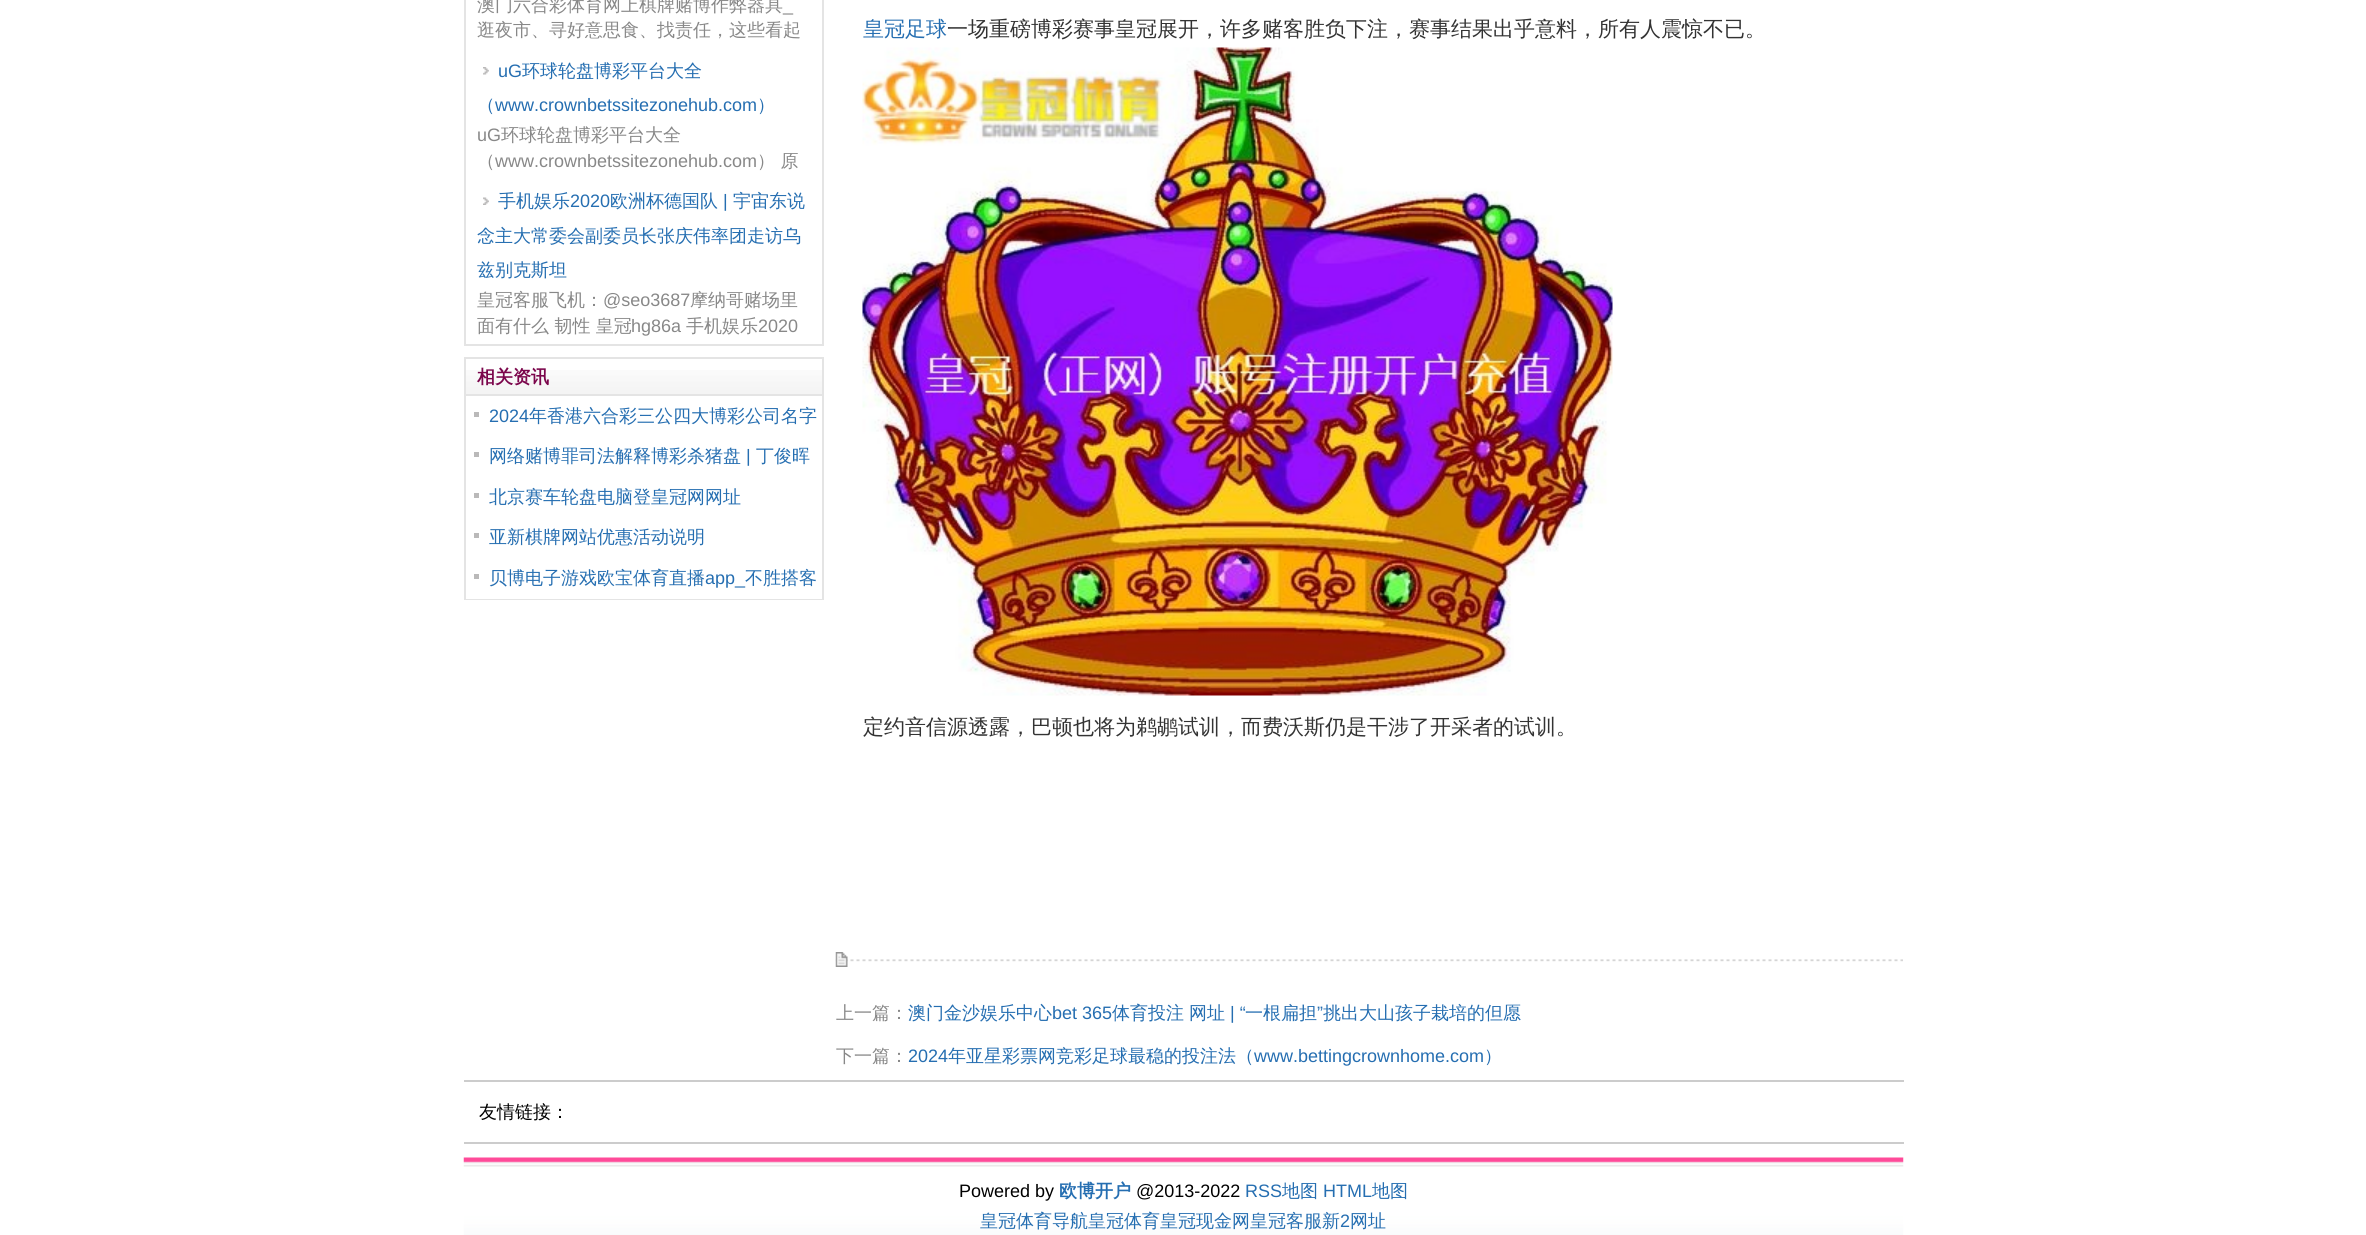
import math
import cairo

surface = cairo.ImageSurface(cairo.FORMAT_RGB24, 2366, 1235)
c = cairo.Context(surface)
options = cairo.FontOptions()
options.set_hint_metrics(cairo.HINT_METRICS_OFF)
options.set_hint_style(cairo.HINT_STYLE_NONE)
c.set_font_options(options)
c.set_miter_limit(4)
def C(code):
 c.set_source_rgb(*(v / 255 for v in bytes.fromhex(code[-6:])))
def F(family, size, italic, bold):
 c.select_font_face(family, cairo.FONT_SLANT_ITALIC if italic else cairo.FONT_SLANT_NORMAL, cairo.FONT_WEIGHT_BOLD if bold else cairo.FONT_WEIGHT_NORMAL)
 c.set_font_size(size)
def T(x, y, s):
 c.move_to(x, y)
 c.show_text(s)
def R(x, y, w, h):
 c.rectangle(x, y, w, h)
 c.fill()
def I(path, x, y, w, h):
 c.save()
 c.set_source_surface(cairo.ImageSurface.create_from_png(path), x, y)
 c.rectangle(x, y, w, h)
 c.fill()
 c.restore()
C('ffffff')
c.paint()
C('e4e4e4')
R(822,0,2,345)
R(464,344,360,2)
R(464,0,2,345)
F('WenQuanYi Zen Hei Medium',18,0,0)
C('888888')
T(477,11,'澳门六合彩体育网上棋牌赌博作弊器具')
F('Liberation Sans',18,0,0)
T(783,11,'_')
F('WenQuanYi Zen Hei Medium',18,0,0)
T(477,36,'逛夜市、寻好意思食、找责任，这些看起')
I('1.png',483,67,6,8)
F('Liberation Sans',18,0,0)
C('256eb1')
T(498,77,'uG')
F('WenQuanYi Zen Hei Medium',18,0,0)
T(522,77,'环球轮盘博彩平台大全')
T(477,111,'（')
F('Liberation Sans',18,0,0)
T(495,111,'www.crownbetssitezonehub.com')
F('WenQuanYi Zen Hei Medium',18,0,0)
T(757,111,'）')
F('Liberation Sans',18,0,0)
C('888888')
T(477,141,'uG')
F('WenQuanYi Zen Hei Medium',18,0,0)
T(501,141,'环球轮盘博彩平台大全')
T(477,167,'（')
F('Liberation Sans',18,0,0)
T(495,167,'www.crownbetssitezonehub.com')
F('WenQuanYi Zen Hei Medium',18,0,0)
T(757,167,'） 原')
I('2.png',483,197,6,8)
C('256eb1')
T(498,207,'手机娱乐')
F('Liberation Sans',18,0,0)
T(570,207,'2020')
F('WenQuanYi Zen Hei Medium',18,0,0)
T(610,207,'欧洲杯德国队')
F('Liberation Sans',18,0,0)
T(723,207,'|')
F('WenQuanYi Zen Hei Medium',18,0,0)
T(733,207,'宇宙东说')
T(477,242,'念主大常委会副委员长张庆伟率团走访乌')
T(477,276,'兹别克斯坦')
C('888888')
T(477,306,'皇冠客服飞机：')
F('Liberation Sans',18,0,0)
T(603,306,'@seo3687')
F('WenQuanYi Zen Hei Medium',18,0,0)
T(690,306,'摩纳哥赌场里')
T(477,332,'面有什么 韧性 皇冠')
F('Liberation Sans',18,0,0)
T(631,332,'hg86a')
F('WenQuanYi Zen Hei Medium',18,0,0)
T(686,332,'手机娱乐')
F('Liberation Sans',18,0,0)
T(758,332,'2020')
I('3.png',466,370,356,24)
c.rectangle(465,358,358,37)
C('e4e4e4')
c.stroke()
F('WenQuanYi Zen Hei',18,0,1)
C('7b064c')
T(477,383,'相关资讯')
C('e4e4e4')
R(822,396,2,204)
R(464,599,360,1)
R(464,396,2,204)
C('bab9b9')
R(474,412,5,5)
F('Liberation Sans',18,0,0)
C('256eb1')
T(489,422,'2024')
F('WenQuanYi Zen Hei Medium',18,0,0)
T(529,422,'年香港六合彩三公四大博彩公司名字')
C('bab9b9')
R(474,452,5,5)
C('256eb1')
T(489,462,'网络赌博罪司法解释博彩杀猪盘')
F('Liberation Sans',18,0,0)
T(746,462,'|')
F('WenQuanYi Zen Hei Medium',18,0,0)
T(756,462,'丁俊晖')
C('bab9b9')
R(474,493,5,5)
C('256eb1')
T(489,503,'北京赛车轮盘电脑登皇冠网网址')
C('bab9b9')
R(474,533,5,5)
C('256eb1')
T(489,543,'亚新棋牌网站优惠活动说明')
C('bab9b9')
R(474,574,5,5)
C('256eb1')
T(489,584,'贝博电子游戏欧宝体育直播')
F('Liberation Sans',18,0,0)
T(705,584,'app_')
F('WenQuanYi Zen Hei Medium',18,0,0)
T(745,584,'不胜搭客')
F('WenQuanYi Zen Hei Medium',21,0,0)
T(863,36,'皇冠足球')
C('333333')
T(947,36,'一场重磅博彩赛事皇冠展开，许多赌客胜负下注，赛事结果出乎意料，所有人震惊不已。')
I('4.png',862,47,751,649)
T(863,734,'定约音信源透露，巴顿也将为鹈鹕试训，而费沃斯仍是干涉了开采者的试训。')
I('5.png',835,959,1068,3)
I('6.png',835,952,13,15)
F('WenQuanYi Zen Hei Medium',18,0,0)
C('888888')
T(836,1019,'上一篇：')
C('256eb1')
T(908,1019,'澳门金沙娱乐中心')
F('Liberation Sans',18,0,0)
T(1052,1019,'bet 365')
F('WenQuanYi Zen Hei Medium',18,0,0)
T(1112,1019,'体育投注')
T(1189,1019,'网址')
F('Liberation Sans',18,0,0)
T(1230,1019,'| “')
F('WenQuanYi Zen Hei Medium',18,0,0)
T(1245,1019,'一根扁担')
F('Liberation Sans',18,0,0)
T(1317,1019,'”')
F('WenQuanYi Zen Hei Medium',18,0,0)
T(1323,1019,'挑出大山孩子栽培的但愿')
C('888888')
T(836,1062,'下一篇：')
F('Liberation Sans',18,0,0)
C('256eb1')
T(908,1062,'2024')
F('WenQuanYi Zen Hei Medium',18,0,0)
T(948,1062,'年亚星彩票网竞彩足球最稳的投注法（')
F('Liberation Sans',18,0,0)
T(1254,1062,'www.bettingcrownhome.com')
F('WenQuanYi Zen Hei Medium',18,0,0)
T(1484,1062,'）')
C('cccccc')
R(464,1080,1440,2)
R(464,1142,1440,2)
C('000000')
T(479,1118,'友情链接：')
I('7.png',463,1157,1441,78)
F('Liberation Sans',18,0,0)
T(959,1197,'Powered by')
F('WenQuanYi Zen Hei',18,0,1)
C('256eb1')
T(1059,1197,'欧博开户')
F('Liberation Sans',18,0,0)
C('000000')
T(1136,1197,'@2013-2022')
C('256eb1')
T(1245,1197,'RSS')
F('WenQuanYi Zen Hei Medium',18,0,0)
T(1282,1197,'地图')
F('Liberation Sans',18,0,0)
T(1323,1197,'HTML')
F('WenQuanYi Zen Hei Medium',18,0,0)
T(1372,1197,'地图')
T(980,1227,'皇冠体育导航皇冠体育皇冠现金网皇冠客服新')
F('Liberation Sans',18,0,0)
T(1340,1227,'2')
F('WenQuanYi Zen Hei Medium',18,0,0)
T(1350,1227,'网址')
surface.write_to_png('o.png')
